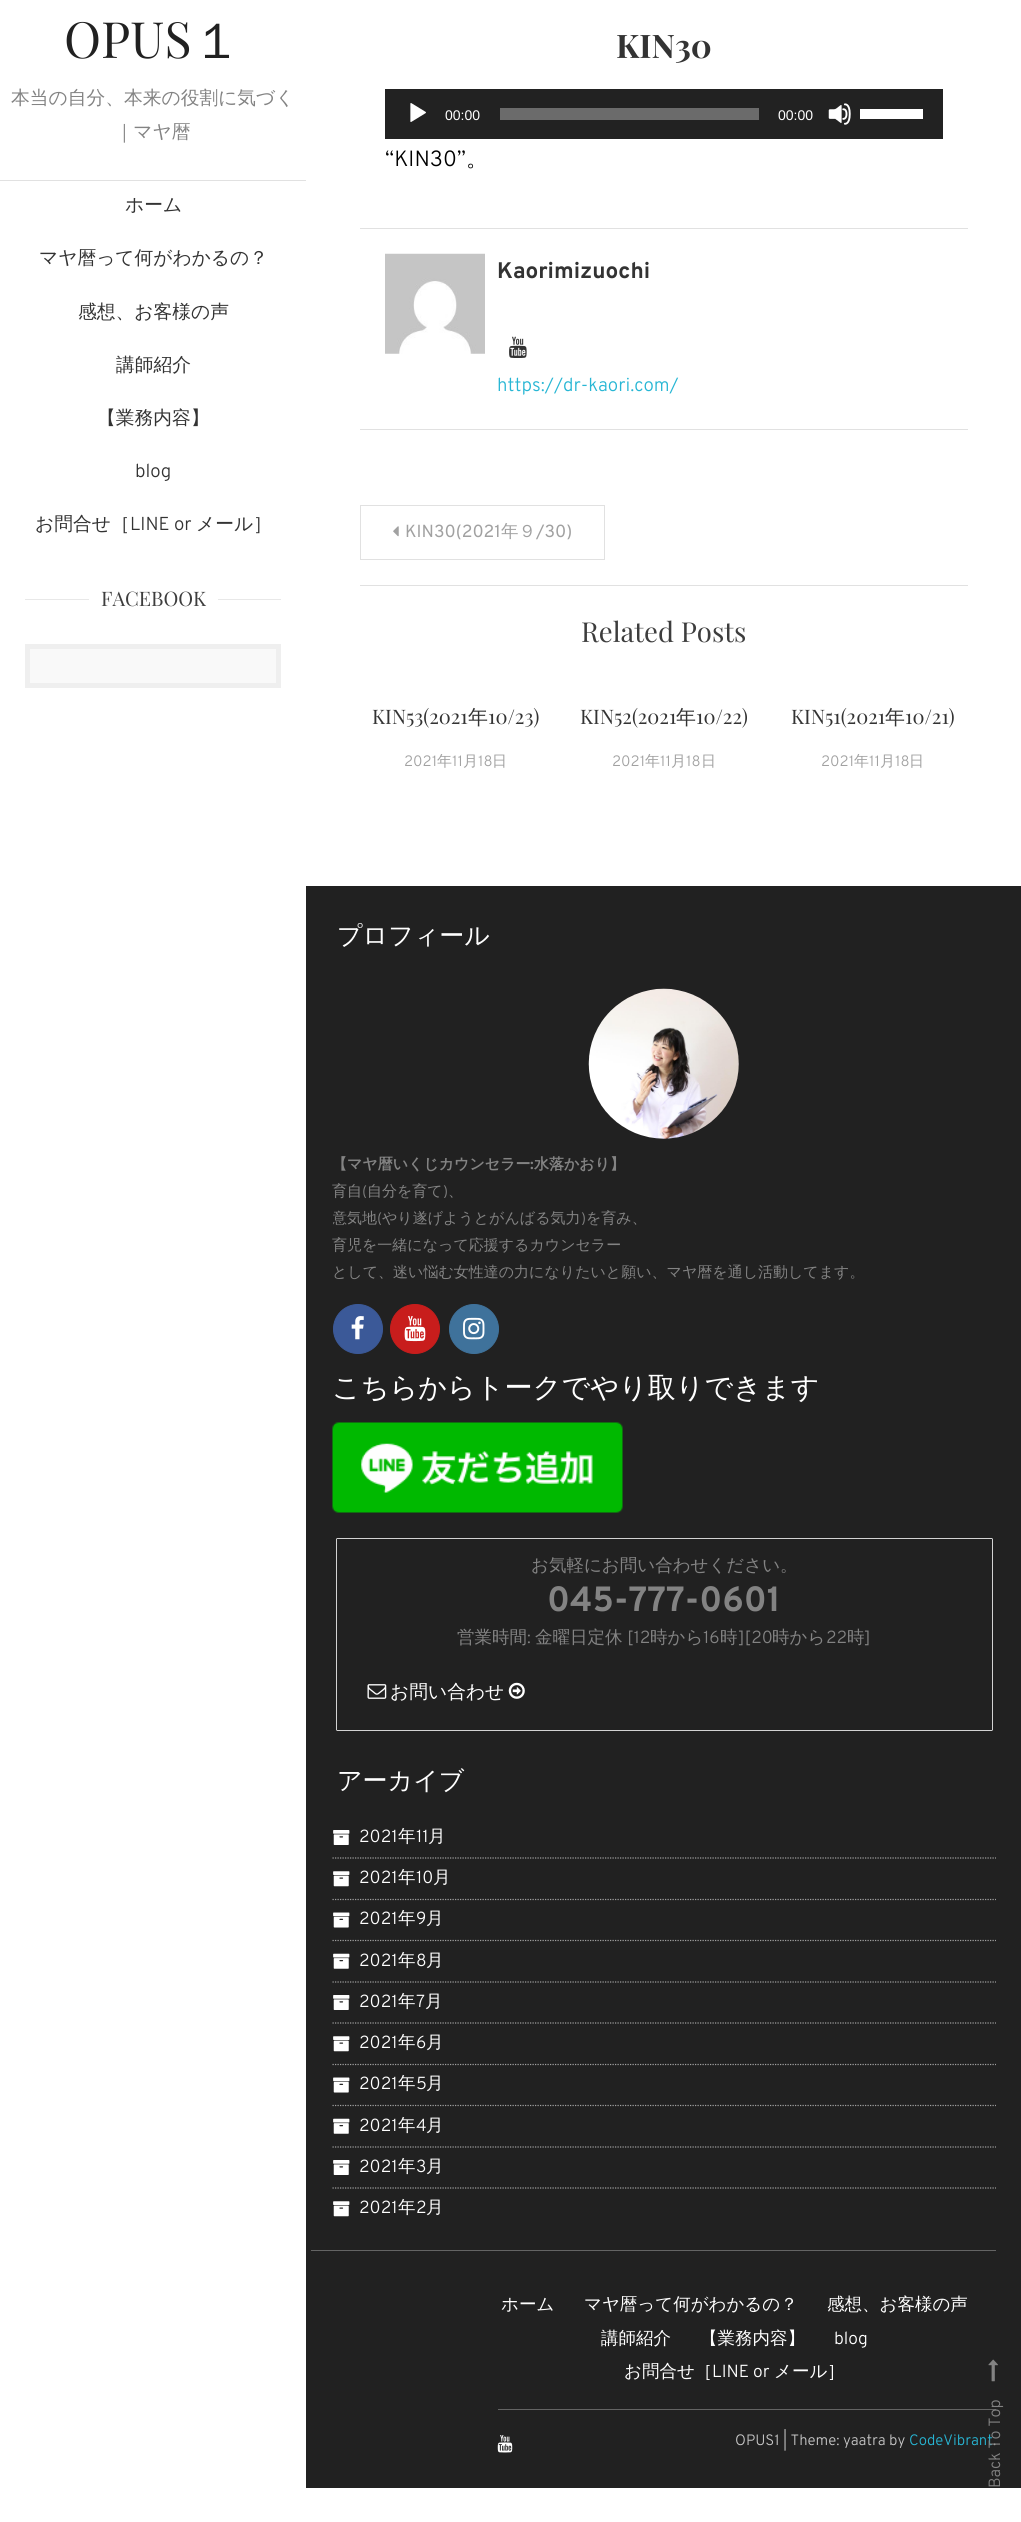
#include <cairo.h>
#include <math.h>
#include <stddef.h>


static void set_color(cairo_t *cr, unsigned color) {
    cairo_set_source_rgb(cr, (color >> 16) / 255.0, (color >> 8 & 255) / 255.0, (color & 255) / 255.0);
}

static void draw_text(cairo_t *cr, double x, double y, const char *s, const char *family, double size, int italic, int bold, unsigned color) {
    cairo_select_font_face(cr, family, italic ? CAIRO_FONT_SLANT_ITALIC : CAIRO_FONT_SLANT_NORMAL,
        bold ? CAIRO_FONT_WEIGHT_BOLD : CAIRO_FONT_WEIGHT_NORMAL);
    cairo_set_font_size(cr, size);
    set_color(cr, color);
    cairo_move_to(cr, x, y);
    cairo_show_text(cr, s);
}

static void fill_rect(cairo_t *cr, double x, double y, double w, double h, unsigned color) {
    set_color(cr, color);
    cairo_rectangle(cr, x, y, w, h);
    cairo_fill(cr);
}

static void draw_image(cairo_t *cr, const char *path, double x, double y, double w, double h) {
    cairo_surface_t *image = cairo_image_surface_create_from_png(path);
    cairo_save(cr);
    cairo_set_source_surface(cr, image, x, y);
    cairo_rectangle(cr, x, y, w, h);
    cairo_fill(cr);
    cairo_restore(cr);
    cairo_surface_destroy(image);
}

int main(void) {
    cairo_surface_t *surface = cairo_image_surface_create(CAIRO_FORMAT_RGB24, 1021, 2522);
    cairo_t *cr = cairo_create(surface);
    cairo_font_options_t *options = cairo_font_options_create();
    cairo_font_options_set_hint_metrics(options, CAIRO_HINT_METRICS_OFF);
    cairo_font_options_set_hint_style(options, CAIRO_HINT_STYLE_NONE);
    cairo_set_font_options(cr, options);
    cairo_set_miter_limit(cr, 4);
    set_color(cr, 0xFFFFFF);
    cairo_paint(cr);
    draw_text(cr, 64, 58, "OPUS", "Playfair Display", 50, 0, 0, 0x212121);
    draw_text(cr, 192, 58, "１", "WenQuanYi Zen Hei Medium", 50, 0, 0, 0x212121);
    draw_text(cr, 11, 104, "本当の自分、本来の役割に気づく", "WenQuanYi Zen Hei Medium", 18.75, 0, 0, 0x838383);
    draw_text(cr, 115, 138, "｜マヤ暦", "WenQuanYi Zen Hei Medium", 18.75, 0, 0, 0x838383);
    fill_rect(cr, 0, 180, 306, 1, 0xE1E1E1);
    draw_text(cr, 125, 211, "ホーム", "WenQuanYi Zen Hei Medium", 18.75, 0, 0, 0x333333);
    draw_text(cr, 39, 264, "マヤ暦って何がわかるの？", "WenQuanYi Zen Hei Medium", 18.75, 0, 0, 0x333333);
    draw_text(cr, 78, 318, "感想、お客様の声", "WenQuanYi Zen Hei Medium", 18.75, 0, 0, 0x333333);
    draw_text(cr, 116, 371, "講師紹介", "WenQuanYi Zen Hei Medium", 18.75, 0, 0, 0x333333);
    draw_text(cr, 97, 424, "【業務内容】", "WenQuanYi Zen Hei Medium", 18.75, 0, 0, 0x333333);
    draw_text(cr, 135, 477, "blog", "Overpass Light", 18.75, 0, 0, 0x333333);
    draw_text(cr, 35, 530, "お問合せ［", "WenQuanYi Zen Hei Medium", 18.75, 0, 0, 0x333333);
    draw_text(cr, 130, 530, "LINE or", "Overpass Light", 18.75, 0, 0, 0x333333);
    draw_text(cr, 196, 530, "メール］", "WenQuanYi Zen Hei Medium", 18.75, 0, 0, 0x333333);
    fill_rect(cr, 25, 599, 64, 1, 0xE8E8E8);
    draw_text(cr, 101, 606, "FACEBOOK", "Playfair Display", 20, 0, 0, 0x3D3D3D);
    fill_rect(cr, 218, 599, 63, 1, 0xE8E8E8);
    set_color(cr, 0xF9F9F9);
    cairo_rectangle(cr, 27.5, 646.5, 251, 39);
    cairo_fill_preserve(cr);
    set_color(cr, 0xEFEFEF);
    cairo_set_line_width(cr, 5);
    cairo_stroke(cr);
    draw_text(cr, 616, 58, "KIN30", "Playfair Display", 32.5, 0, 1, 0x333333);
    fill_rect(cr, 385, 89, 558, 50, 0x222222);
    draw_image(cr, "assets/img1.png", 410, 103, 16, 19);
    draw_text(cr, 445, 120, "00:00", "Liberation Sans", 14, 0, 0, 0xFFFFFF);
    fill_rect(cr, 500, 108, 259, 12, 0x6B6B6B);
    draw_text(cr, 778, 120, "00:00", "Liberation Sans", 14, 0, 0, 0xFFFFFF);
    draw_image(cr, "assets/img2.png", 828, 103, 23, 22);
    fill_rect(cr, 860, 109, 63, 10, 0xFFFFFF);
    draw_text(cr, 385, 166, "“KIN30”", "Overpass Light", 22, 0, 0, 0x000000);
    draw_text(cr, 466, 166, "。", "WenQuanYi Zen Hei Medium", 22, 0, 0, 0x000000);
    fill_rect(cr, 360, 228, 608, 1, 0xE1E1E1);
    fill_rect(cr, 360, 429, 608, 1, 0xE1E1E1);
    draw_image(cr, "assets/img3.png", 385, 253, 100, 101);
    draw_text(cr, 497, 278, "Kaorimizuochi", "Overpass", 22.5, 0, 1, 0x333333);
    draw_image(cr, "assets/img4.png", 509, 336, 18, 22);
    draw_text(cr, 497, 391, "https://dr-kaori.com/", "Overpass Light", 18.75, 0, 0, 0x27B6D4);
    cairo_rectangle(cr, 360.5, 505.5, 244, 54);
    set_color(cr, 0xE1E1E1);
    cairo_set_line_width(cr, 1);
    cairo_stroke(cr);
    draw_image(cr, "assets/img5.png", 393, 526, 6, 11);
    draw_text(cr, 405, 537, "KIN30(2021", "Overpass", 17.5, 0, 0, 0xA1A1A1);
    draw_text(cr, 501, 537, "年９", "WenQuanYi Zen Hei Medium", 17.5, 0, 0, 0xA1A1A1);
    draw_text(cr, 536, 537, "/30)", "Overpass", 17.5, 0, 0, 0xA1A1A1);
    fill_rect(cr, 360, 585, 608, 1, 0xE1E1E1);
    draw_text(cr, 581, 642, "Related Posts", "Playfair Display", 27.5, 0, 0, 0x3D3D3D);
    draw_text(cr, 372, 724, "KIN53(2021", "Playfair Display", 20, 0, 0, 0x333333);
    draw_text(cr, 468, 724, "年", "WenQuanYi Zen Hei Medium", 20, 0, 0, 0x333333);
    draw_text(cr, 488, 724, "10/23)", "Playfair Display", 20, 0, 0, 0x333333);
    draw_text(cr, 404, 766, "2021", "Overpass Light", 15, 0, 0, 0xA1A1A1);
    draw_text(cr, 437, 766, "年", "WenQuanYi Zen Hei Medium", 15, 0, 0, 0xA1A1A1);
    draw_text(cr, 452, 766, "11", "Overpass Light", 15, 0, 0, 0xA1A1A1);
    draw_text(cr, 463, 766, "月", "WenQuanYi Zen Hei Medium", 15, 0, 0, 0xA1A1A1);
    draw_text(cr, 478, 766, "18", "Overpass Light", 15, 0, 0, 0xA1A1A1);
    draw_text(cr, 492, 766, "日", "WenQuanYi Zen Hei Medium", 15, 0, 0, 0xA1A1A1);
    draw_text(cr, 580, 724, "KIN52(2021", "Playfair Display", 20, 0, 0, 0x333333);
    draw_text(cr, 676, 724, "年", "WenQuanYi Zen Hei Medium", 20, 0, 0, 0x333333);
    draw_text(cr, 696, 724, "10/22)", "Playfair Display", 20, 0, 0, 0x333333);
    draw_text(cr, 612, 766, "2021", "Overpass Light", 15, 0, 0, 0xA1A1A1);
    draw_text(cr, 645, 766, "年", "WenQuanYi Zen Hei Medium", 15, 0, 0, 0xA1A1A1);
    draw_text(cr, 660, 766, "11", "Overpass Light", 15, 0, 0, 0xA1A1A1);
    draw_text(cr, 671, 766, "月", "WenQuanYi Zen Hei Medium", 15, 0, 0, 0xA1A1A1);
    draw_text(cr, 686, 766, "18", "Overpass Light", 15, 0, 0, 0xA1A1A1);
    draw_text(cr, 701, 766, "日", "WenQuanYi Zen Hei Medium", 15, 0, 0, 0xA1A1A1);
    draw_text(cr, 791, 724, "KIN51(2021", "Playfair Display", 20, 0, 0, 0x333333);
    draw_text(cr, 885, 724, "年", "WenQuanYi Zen Hei Medium", 20, 0, 0, 0x333333);
    draw_text(cr, 905, 724, "10/21)", "Playfair Display", 20, 0, 0, 0x333333);
    draw_text(cr, 821, 766, "2021", "Overpass Light", 15, 0, 0, 0xA1A1A1);
    draw_text(cr, 854, 766, "年", "WenQuanYi Zen Hei Medium", 15, 0, 0, 0xA1A1A1);
    draw_text(cr, 869, 766, "11", "Overpass Light", 15, 0, 0, 0xA1A1A1);
    draw_text(cr, 880, 766, "月", "WenQuanYi Zen Hei Medium", 15, 0, 0, 0xA1A1A1);
    draw_text(cr, 895, 766, "18", "Overpass Light", 15, 0, 0, 0xA1A1A1);
    draw_text(cr, 909, 766, "日", "WenQuanYi Zen Hei Medium", 15, 0, 0, 0xA1A1A1);
    fill_rect(cr, 306, 886, 715, 1602, 0x212121);
    fill_rect(cr, 311, 2250, 685, 1, 0x646464);
    draw_text(cr, 337, 944, "プロフィール", "WenQuanYi Zen Hei Medium", 25, 0, 0, 0xFFFFFF);
    draw_image(cr, "assets/img6.png", 588, 988, 151, 151);
    draw_text(cr, 332, 1169, "【マヤ暦いくじカウンセラー", "WenQuanYi Zen Hei", 15, 0, 1, 0x838383);
    draw_text(cr, 530, 1169, ":", "Overpass", 15, 0, 1, 0x838383);
    draw_text(cr, 534, 1169, "水落かおり】", "WenQuanYi Zen Hei", 15, 0, 1, 0x838383);
    draw_text(cr, 332, 1196, "育自", "WenQuanYi Zen Hei Medium", 15, 0, 0, 0x838383);
    draw_text(cr, 362, 1196, "(", "Overpass Light", 15, 0, 0, 0x838383);
    draw_text(cr, 367, 1196, "自分を育て", "WenQuanYi Zen Hei Medium", 15, 0, 0, 0x838383);
    draw_text(cr, 443, 1196, ")", "Overpass Light", 15, 0, 0, 0x838383);
    draw_text(cr, 448, 1196, "、", "WenQuanYi Zen Hei Medium", 15, 0, 0, 0x838383);
    cairo_save(cr);
    cairo_rectangle(cr, 333, 974, 663, 380);
    cairo_clip(cr);
    draw_text(cr, 332, 1223, "意気地", "WenQuanYi Zen Hei Medium", 15, 0, 0, 0x838383);
    cairo_restore(cr);
    draw_text(cr, 377, 1223, "(", "Overpass Light", 15, 0, 0, 0x838383);
    draw_text(cr, 382, 1223, "やり遂げようとがんばる気力", "WenQuanYi Zen Hei Medium", 15, 0, 0, 0x838383);
    draw_text(cr, 581, 1223, ")", "Overpass Light", 15, 0, 0, 0x838383);
    draw_text(cr, 586, 1223, "を育み、", "WenQuanYi Zen Hei Medium", 15, 0, 0, 0x838383);
    draw_text(cr, 332, 1250, "育児を一緒になって応援するカウンセラー", "WenQuanYi Zen Hei Medium", 15, 0, 0, 0x838383);
    draw_text(cr, 332, 1277, "として、迷い悩む女性達の力になりたいと願い、マヤ暦を通し活動してます。", "WenQuanYi Zen Hei Medium", 15, 0, 0, 0x838383);
    set_color(cr, 0x3B5998);
    cairo_new_path(cr);
    cairo_arc(cr, 358, 1329, 24.5, 0, 2 * M_PI);
    cairo_fill_preserve(cr);
    cairo_stroke(cr);
    draw_image(cr, "assets/img7.png", 351, 1316, 13, 24);
    set_color(cr, 0xC81D1C);
    cairo_arc(cr, 415, 1329, 24.5, 0, 2 * M_PI);
    cairo_fill_preserve(cr);
    cairo_stroke(cr);
    draw_image(cr, "assets/img8.png", 404, 1316, 22, 26);
    set_color(cr, 0x3F729B);
    cairo_arc(cr, 474, 1329, 24.5, 0, 2 * M_PI);
    cairo_fill_preserve(cr);
    cairo_stroke(cr);
    draw_image(cr, "assets/img9.png", 463, 1317, 22, 23);
    draw_text(cr, 332, 1397, "こちらからトークでやり取りできます", "WenQuanYi Zen Hei Medium", 28.1, 0, 0, 0xFFFFFF);
    draw_image(cr, "assets/img10.png", 332, 1422, 291, 91);
    set_color(cr, 0xD3D3D3);
    cairo_set_fill_rule(cr, CAIRO_FILL_RULE_EVEN_ODD);
    cairo_new_path(cr);
    cairo_move_to(cr, 337, 1538);
    cairo_line_to(cr, 336, 1539);
    cairo_line_to(cr, 336, 1730);
    cairo_line_to(cr, 337, 1731);
    cairo_line_to(cr, 992, 1731);
    cairo_line_to(cr, 993, 1730);
    cairo_line_to(cr, 993, 1539);
    cairo_line_to(cr, 992, 1538);
    cairo_close_path(cr);
    cairo_move_to(cr, 337, 1539);
    cairo_line_to(cr, 337, 1730);
    cairo_line_to(cr, 992, 1730);
    cairo_line_to(cr, 992, 1539);
    cairo_close_path(cr);
    cairo_fill(cr);
    draw_text(cr, 531, 1571, "お気軽にお問い合わせください。", "WenQuanYi Zen Hei Medium", 17.5, 0, 0, 0x838383);
    draw_text(cr, 547, 1611, "045-777-0601", "Overpass", 35, 0, 1, 0x838383);
    draw_text(cr, 457, 1643, "営業時間", "WenQuanYi Zen Hei Medium", 17.5, 0, 0, 0x838383);
    draw_text(cr, 527, 1643, ":", "Overpass Light", 17.5, 0, 0, 0x838383);
    draw_text(cr, 535, 1643, "金曜日定休", "WenQuanYi Zen Hei Medium", 17.5, 0, 0, 0x838383);
    draw_text(cr, 627, 1643, "[12", "Overpass Light", 17.5, 0, 0, 0x838383);
    draw_text(cr, 650, 1643, "時から", "WenQuanYi Zen Hei Medium", 17.5, 0, 0, 0x838383);
    draw_text(cr, 703, 1643, "16", "Overpass Light", 17.5, 0, 0, 0x838383);
    draw_text(cr, 720, 1643, "時", "WenQuanYi Zen Hei Medium", 17.5, 0, 0, 0x838383);
    draw_text(cr, 738, 1643, "][20", "Overpass Light", 17.5, 0, 0, 0x838383);
    draw_text(cr, 772, 1643, "時から", "WenQuanYi Zen Hei Medium", 17.5, 0, 0, 0x838383);
    draw_text(cr, 826, 1643, "22", "Overpass Light", 17.5, 0, 0, 0x838383);
    draw_text(cr, 847, 1643, "時", "WenQuanYi Zen Hei Medium", 17.5, 0, 0, 0x838383);
    draw_text(cr, 864, 1643, "]", "Overpass Light", 17.5, 0, 0, 0x838383);
    draw_image(cr, "assets/img11.png", 367, 1684, 20, 15);
    draw_text(cr, 390, 1698, "お問い合わせ", "WenQuanYi Zen Hei Medium", 18.75, 0, 0, 0xFFFFFF);
    draw_image(cr, "assets/img12.png", 508, 1682, 17, 17);
    draw_text(cr, 337, 1789, "アーカイブ", "WenQuanYi Zen Hei Medium", 25, 0, 0, 0xFFFFFF);
    cairo_new_path(cr);
    cairo_move_to(cr, 332.5, 1858);
    cairo_line_to(cr, 996, 1858);
    set_color(cr, 0xA1A1A1);
    cairo_set_line_width(cr, 1.2);
    cairo_set_dash(cr, (double[]){1.25, 1.25}, 2, 0);
    cairo_stroke(cr);
    draw_image(cr, "assets/img13.png", 333, 1830, 17, 15);
    draw_text(cr, 359, 1842, "2021", "Overpass Light", 17.5, 0, 0, 0xFFFFFF);
    draw_text(cr, 398, 1842, "年", "WenQuanYi Zen Hei Medium", 17.5, 0, 0, 0xFFFFFF);
    draw_text(cr, 416, 1842, "11", "Overpass Light", 17.5, 0, 0, 0xFFFFFF);
    draw_text(cr, 428, 1842, "月", "WenQuanYi Zen Hei Medium", 17.5, 0, 0, 0xFFFFFF);
    cairo_new_path(cr);
    cairo_move_to(cr, 332.5, 1899.5);
    cairo_line_to(cr, 996, 1899.5);
    set_color(cr, 0xA1A1A1);
    cairo_stroke(cr);
    draw_image(cr, "assets/img14.png", 333, 1871, 17, 16);
    draw_text(cr, 359, 1883, "2021", "Overpass Light", 17.5, 0, 0, 0xFFFFFF);
    draw_text(cr, 398, 1883, "年", "WenQuanYi Zen Hei Medium", 17.5, 0, 0, 0xFFFFFF);
    draw_text(cr, 416, 1883, "10", "Overpass Light", 17.5, 0, 0, 0xFFFFFF);
    draw_text(cr, 433, 1883, "月", "WenQuanYi Zen Hei Medium", 17.5, 0, 0, 0xFFFFFF);
    cairo_new_path(cr);
    cairo_move_to(cr, 332.5, 1940.5);
    cairo_line_to(cr, 996, 1940.5);
    set_color(cr, 0xA1A1A1);
    cairo_stroke(cr);
    draw_image(cr, "assets/img15.png", 333, 1912, 17, 16);
    draw_text(cr, 359, 1924, "2021", "Overpass Light", 17.5, 0, 0, 0xFFFFFF);
    draw_text(cr, 398, 1924, "年", "WenQuanYi Zen Hei Medium", 17.5, 0, 0, 0xFFFFFF);
    draw_text(cr, 416, 1924, "9", "Overpass Light", 17.5, 0, 0, 0xFFFFFF);
    draw_text(cr, 426, 1924, "月", "WenQuanYi Zen Hei Medium", 17.5, 0, 0, 0xFFFFFF);
    cairo_new_path(cr);
    cairo_move_to(cr, 332.5, 1982);
    cairo_line_to(cr, 996, 1982);
    set_color(cr, 0xA1A1A1);
    cairo_stroke(cr);
    draw_image(cr, "assets/img16.png", 333, 1953, 17, 16);
    draw_text(cr, 359, 1966, "2021", "Overpass Light", 17.5, 0, 0, 0xFFFFFF);
    draw_text(cr, 398, 1966, "年", "WenQuanYi Zen Hei Medium", 17.5, 0, 0, 0xFFFFFF);
    draw_text(cr, 416, 1966, "8", "Overpass Light", 17.5, 0, 0, 0xFFFFFF);
    draw_text(cr, 426, 1966, "月", "WenQuanYi Zen Hei Medium", 17.5, 0, 0, 0xFFFFFF);
    cairo_new_path(cr);
    cairo_move_to(cr, 332.5, 2023);
    cairo_line_to(cr, 996, 2023);
    set_color(cr, 0xA1A1A1);
    cairo_stroke(cr);
    draw_image(cr, "assets/img13.png", 333, 1995, 17, 15);
    draw_text(cr, 359, 2007, "2021", "Overpass Light", 17.5, 0, 0, 0xFFFFFF);
    draw_text(cr, 398, 2007, "年", "WenQuanYi Zen Hei Medium", 17.5, 0, 0, 0xFFFFFF);
    draw_text(cr, 416, 2007, "7", "Overpass Light", 17.5, 0, 0, 0xFFFFFF);
    draw_text(cr, 425, 2007, "月", "WenQuanYi Zen Hei Medium", 17.5, 0, 0, 0xFFFFFF);
    cairo_new_path(cr);
    cairo_move_to(cr, 332.5, 2064.5);
    cairo_line_to(cr, 996, 2064.5);
    set_color(cr, 0xA1A1A1);
    cairo_stroke(cr);
    draw_image(cr, "assets/img14.png", 333, 2036, 17, 16);
    draw_text(cr, 359, 2048, "2021", "Overpass Light", 17.5, 0, 0, 0xFFFFFF);
    draw_text(cr, 398, 2048, "年", "WenQuanYi Zen Hei Medium", 17.5, 0, 0, 0xFFFFFF);
    draw_text(cr, 416, 2048, "6", "Overpass Light", 17.5, 0, 0, 0xFFFFFF);
    draw_text(cr, 426, 2048, "月", "WenQuanYi Zen Hei Medium", 17.5, 0, 0, 0xFFFFFF);
    cairo_new_path(cr);
    cairo_move_to(cr, 332.5, 2105.5);
    cairo_line_to(cr, 996, 2105.5);
    set_color(cr, 0xA1A1A1);
    cairo_stroke(cr);
    draw_image(cr, "assets/img15.png", 333, 2077, 17, 16);
    draw_text(cr, 359, 2089, "2021", "Overpass Light", 17.5, 0, 0, 0xFFFFFF);
    draw_text(cr, 398, 2089, "年", "WenQuanYi Zen Hei Medium", 17.5, 0, 0, 0xFFFFFF);
    draw_text(cr, 416, 2089, "5", "Overpass Light", 17.5, 0, 0, 0xFFFFFF);
    draw_text(cr, 426, 2089, "月", "WenQuanYi Zen Hei Medium", 17.5, 0, 0, 0xFFFFFF);
    cairo_new_path(cr);
    cairo_move_to(cr, 332.5, 2147);
    cairo_line_to(cr, 996, 2147);
    set_color(cr, 0xA1A1A1);
    cairo_stroke(cr);
    draw_image(cr, "assets/img16.png", 333, 2118, 17, 16);
    draw_text(cr, 359, 2131, "2021", "Overpass Light", 17.5, 0, 0, 0xFFFFFF);
    draw_text(cr, 398, 2131, "年", "WenQuanYi Zen Hei Medium", 17.5, 0, 0, 0xFFFFFF);
    draw_text(cr, 416, 2131, "4", "Overpass Light", 17.5, 0, 0, 0xFFFFFF);
    draw_text(cr, 426, 2131, "月", "WenQuanYi Zen Hei Medium", 17.5, 0, 0, 0xFFFFFF);
    cairo_new_path(cr);
    cairo_move_to(cr, 332.5, 2188);
    cairo_line_to(cr, 996, 2188);
    set_color(cr, 0xA1A1A1);
    cairo_stroke(cr);
    draw_image(cr, "assets/img13.png", 333, 2160, 17, 15);
    draw_text(cr, 359, 2172, "2021", "Overpass Light", 17.5, 0, 0, 0xFFFFFF);
    draw_text(cr, 398, 2172, "年", "WenQuanYi Zen Hei Medium", 17.5, 0, 0, 0xFFFFFF);
    draw_text(cr, 416, 2172, "3", "Overpass Light", 17.5, 0, 0, 0xFFFFFF);
    draw_text(cr, 426, 2172, "月", "WenQuanYi Zen Hei Medium", 17.5, 0, 0, 0xFFFFFF);
    draw_image(cr, "assets/img14.png", 333, 2201, 17, 16);
    draw_text(cr, 359, 2213, "2021", "Overpass Light", 17.5, 0, 0, 0xFFFFFF);
    draw_text(cr, 398, 2213, "年", "WenQuanYi Zen Hei Medium", 17.5, 0, 0, 0xFFFFFF);
    draw_text(cr, 416, 2213, "2", "Overpass Light", 17.5, 0, 0, 0xFFFFFF);
    draw_text(cr, 426, 2213, "月", "WenQuanYi Zen Hei Medium", 17.5, 0, 0, 0xFFFFFF);
    fill_rect(cr, 498, 2409, 498, 1, 0x646464);
    draw_text(cr, 501, 2310, "ホーム", "WenQuanYi Zen Hei Medium", 17.5, 0, 0, 0xFFFFFF);
    draw_text(cr, 584, 2310, "マヤ暦って何がわかるの？", "WenQuanYi Zen Hei Medium", 17.5, 0, 0, 0xFFFFFF);
    draw_text(cr, 827, 2310, "感想、お客様の声", "WenQuanYi Zen Hei Medium", 17.5, 0, 0, 0xFFFFFF);
    draw_text(cr, 601, 2344, "講師紹介", "WenQuanYi Zen Hei Medium", 17.5, 0, 0, 0xFFFFFF);
    draw_text(cr, 700, 2344, "【業務内容】", "WenQuanYi Zen Hei Medium", 17.5, 0, 0, 0xFFFFFF);
    draw_text(cr, 834, 2344, "blog", "Overpass Light", 17.5, 0, 0, 0xFFFFFF);
    draw_text(cr, 624, 2377, "お問合せ［", "WenQuanYi Zen Hei Medium", 17.5, 0, 0, 0xFFFFFF);
    draw_text(cr, 712, 2377, "LINE or", "Overpass Light", 17.5, 0, 0, 0xFFFFFF);
    draw_text(cr, 774, 2377, "メール］", "WenQuanYi Zen Hei Medium", 17.5, 0, 0, 0xFFFFFF);
    draw_image(cr, "assets/img17.png", 497, 2435, 16, 18);
    draw_text(cr, 735, 2445, "OPUS1 | Theme: yaatra by", "Overpass Light", 15, 0, 0, 0xC6C6C6);
    draw_text(cr, 909, 2445, "CodeVibrant", "Overpass Light", 15, 0, 0, 0x27B6D4);
    draw_text(cr, 993, 2445, ".", "Overpass Light", 15, 0, 0, 0xC6C6C6);
    draw_image(cr, "assets/img18.png", 988, 2359, 10, 23);
    cairo_save(cr);
    cairo_translate(cr, 1000, 2488);
    cairo_rotate(cr, -90 * M_PI / 180);
    draw_text(cr, 0, 0, "Back To Top", "Overpass Light", 16.25, 0, 0, 0x838383);
    cairo_restore(cr);
    cairo_surface_write_to_png(surface, "output.png");
    cairo_font_options_destroy(options);
    cairo_destroy(cr);
    cairo_surface_destroy(surface);
    return 0;
}
